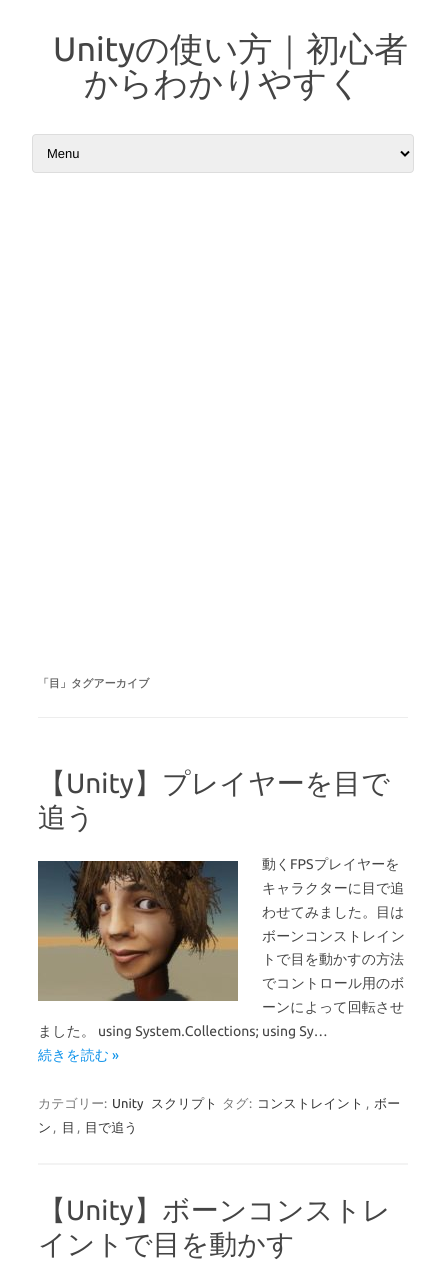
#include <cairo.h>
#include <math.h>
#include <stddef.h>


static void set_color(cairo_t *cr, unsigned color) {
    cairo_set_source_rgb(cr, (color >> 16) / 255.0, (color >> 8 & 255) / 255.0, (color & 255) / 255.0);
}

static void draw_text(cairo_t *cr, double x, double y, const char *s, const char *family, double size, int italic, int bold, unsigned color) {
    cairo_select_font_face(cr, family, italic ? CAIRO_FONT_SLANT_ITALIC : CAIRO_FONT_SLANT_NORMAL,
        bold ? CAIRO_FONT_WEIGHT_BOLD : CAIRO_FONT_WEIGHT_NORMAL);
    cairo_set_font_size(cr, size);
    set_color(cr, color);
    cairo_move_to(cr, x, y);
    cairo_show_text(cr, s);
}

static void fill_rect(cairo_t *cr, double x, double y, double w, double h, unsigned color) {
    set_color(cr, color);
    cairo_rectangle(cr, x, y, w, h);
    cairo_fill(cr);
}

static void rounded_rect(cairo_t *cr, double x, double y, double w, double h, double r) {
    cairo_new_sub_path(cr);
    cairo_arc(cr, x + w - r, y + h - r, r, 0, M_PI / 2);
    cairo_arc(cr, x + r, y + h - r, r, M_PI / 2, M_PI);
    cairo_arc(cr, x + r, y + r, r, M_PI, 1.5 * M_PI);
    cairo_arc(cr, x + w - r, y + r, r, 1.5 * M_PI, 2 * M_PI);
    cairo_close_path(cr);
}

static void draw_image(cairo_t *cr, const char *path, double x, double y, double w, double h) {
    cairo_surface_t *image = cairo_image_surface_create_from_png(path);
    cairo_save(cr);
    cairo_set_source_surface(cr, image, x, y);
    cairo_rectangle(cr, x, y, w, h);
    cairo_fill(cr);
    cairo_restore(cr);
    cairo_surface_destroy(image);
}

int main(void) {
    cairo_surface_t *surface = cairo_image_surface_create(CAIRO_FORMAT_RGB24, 446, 1286);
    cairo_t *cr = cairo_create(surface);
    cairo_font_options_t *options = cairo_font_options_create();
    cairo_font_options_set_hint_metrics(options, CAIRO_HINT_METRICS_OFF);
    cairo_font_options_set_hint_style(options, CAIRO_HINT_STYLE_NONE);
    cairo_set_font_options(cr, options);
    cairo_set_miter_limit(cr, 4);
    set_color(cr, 0xFFFFFF);
    cairo_paint(cr);
    draw_text(cr, 53, 61, "Unity", "Ubuntu", 34, 0, 0, 0x444444);
    draw_text(cr, 135, 61, "の使い方｜初心者", "WenQuanYi Zen Hei Medium", 34, 0, 0, 0x444444);
    draw_text(cr, 84, 95, "からわかりやすく", "WenQuanYi Zen Hei Medium", 34, 0, 0, 0x444444);
    set_color(cr, 0xEFEFEF);
    rounded_rect(cr, 32.5, 134.5, 381, 38, 3.5);
    cairo_fill_preserve(cr);
    set_color(cr, 0xDDDDDD);
    cairo_set_line_width(cr, 1);
    cairo_stroke(cr);
    cairo_new_path(cr);
    cairo_move_to(cr, 401, 151.5);
    cairo_line_to(cr, 405, 155.5);
    cairo_line_to(cr, 409, 151.5);
    set_color(cr, 0x000000);
    cairo_set_line_width(cr, 2);
    cairo_stroke(cr);
    draw_text(cr, 47, 158, "Menu", "Liberation Sans", 13, 0, 0, 0x000000);
    fill_rect(cr, 38, 717, 370, 1, 0xEDEDED);
    draw_text(cr, 38, 687, "「目」タグアーカイブ", "WenQuanYi Zen Hei", 11, 0, 1, 0x636363);
    fill_rect(cr, 38, 1163, 370, 2, 0xF3F3F3);
    draw_text(cr, 38, 793, "【", "WenQuanYi Zen Hei Medium", 28, 0, 0, 0x444444);
    draw_text(cr, 66, 793, "Unity", "Ubuntu", 28, 0, 0, 0x444444);
    draw_text(cr, 134, 793, "】プレイヤーを目で", "WenQuanYi Zen Hei Medium", 28, 0, 0, 0x444444);
    draw_text(cr, 38, 827, "追う", "WenQuanYi Zen Hei Medium", 28, 0, 0, 0x444444);
    draw_text(cr, 262, 869, "動く", "WenQuanYi Zen Hei Medium", 14, 0, 0, 0x444444);
    draw_text(cr, 290, 869, "FPS", "Ubuntu", 14, 0, 0, 0x444444);
    draw_text(cr, 314, 869, "プレイヤーを", "WenQuanYi Zen Hei Medium", 14, 0, 0, 0x444444);
    draw_text(cr, 262, 893, "キャラクターに目で追", "WenQuanYi Zen Hei Medium", 14, 0, 0, 0x444444);
    draw_text(cr, 262, 917, "わせてみました。目は", "WenQuanYi Zen Hei Medium", 14, 0, 0, 0x444444);
    draw_text(cr, 262, 941, "ボーンコンストレイン", "WenQuanYi Zen Hei Medium", 14, 0, 0, 0x444444);
    draw_text(cr, 262, 964, "トで目を動かすの方法", "WenQuanYi Zen Hei Medium", 14, 0, 0, 0x444444);
    draw_text(cr, 262, 988, "でコントロール用のボ", "WenQuanYi Zen Hei Medium", 14, 0, 0, 0x444444);
    draw_text(cr, 262, 1012, "ーンによって回転させ", "WenQuanYi Zen Hei Medium", 14, 0, 0, 0x444444);
    draw_text(cr, 38, 1036, "ました。", "WenQuanYi Zen Hei Medium", 14, 0, 0, 0x444444);
    draw_text(cr, 98, 1036, "using System.Collections; using Sy…", "Ubuntu", 14, 0, 0, 0x444444);
    draw_text(cr, 38, 1060, "続きを読む", "WenQuanYi Zen Hei Medium", 14, 0, 0, 0x0B91EA);
    draw_text(cr, 112, 1060, "»", "Ubuntu", 14, 0, 0, 0x0B91EA);
    draw_image(cr, "assets/img1.png", 38, 861, 200, 140);
    draw_text(cr, 38, 1108, "カテゴリー", "WenQuanYi Zen Hei Medium", 13, 0, 0, 0x757575);
    draw_text(cr, 104, 1108, ":", "Ubuntu", 13, 0, 0, 0x757575);
    draw_text(cr, 112, 1108, "Unity", "Ubuntu", 13, 0, 0, 0x333333);
    draw_text(cr, 151, 1108, "スクリプト", "WenQuanYi Zen Hei Medium", 13, 0, 0, 0x333333);
    draw_text(cr, 222, 1108, "タグ", "WenQuanYi Zen Hei Medium", 13, 0, 0, 0x757575);
    draw_text(cr, 249, 1108, ":", "Ubuntu", 13, 0, 0, 0x757575);
    draw_text(cr, 257, 1108, "コンストレイント", "WenQuanYi Zen Hei Medium", 13, 0, 0, 0x333333);
    draw_text(cr, 366, 1108, ",", "Ubuntu", 13, 0, 0, 0x757575);
    draw_text(cr, 374, 1108, "ボー", "WenQuanYi Zen Hei Medium", 13, 0, 0, 0x333333);
    draw_text(cr, 38, 1132, "ン", "WenQuanYi Zen Hei Medium", 13, 0, 0, 0x333333);
    draw_text(cr, 53, 1132, ",", "Ubuntu", 13, 0, 0, 0x757575);
    draw_text(cr, 62, 1132, "目", "WenQuanYi Zen Hei Medium", 13, 0, 0, 0x333333);
    draw_text(cr, 77, 1132, ",", "Ubuntu", 13, 0, 0, 0x757575);
    draw_text(cr, 85, 1132, "目で追う", "WenQuanYi Zen Hei Medium", 13, 0, 0, 0x333333);
    draw_text(cr, 38, 1220, "【", "WenQuanYi Zen Hei Medium", 28, 0, 0, 0x444444);
    draw_text(cr, 66, 1220, "Unity", "Ubuntu", 28, 0, 0, 0x444444);
    draw_text(cr, 134, 1220, "】ボーンコンストレ", "WenQuanYi Zen Hei Medium", 28, 0, 0, 0x444444);
    draw_text(cr, 38, 1254, "イントで目を動かす", "WenQuanYi Zen Hei Medium", 28, 0, 0, 0x444444);
    cairo_surface_write_to_png(surface, "output.png");
    cairo_font_options_destroy(options);
    cairo_destroy(cr);
    cairo_surface_destroy(surface);
    return 0;
}
